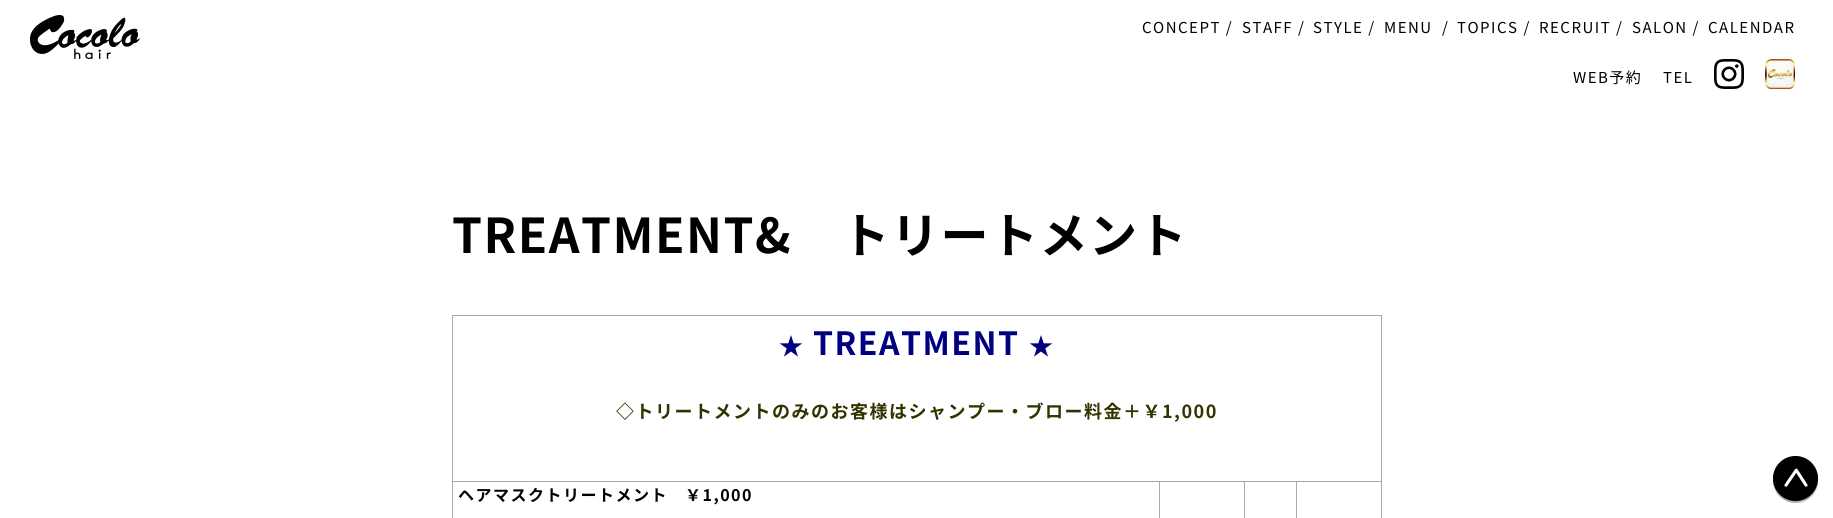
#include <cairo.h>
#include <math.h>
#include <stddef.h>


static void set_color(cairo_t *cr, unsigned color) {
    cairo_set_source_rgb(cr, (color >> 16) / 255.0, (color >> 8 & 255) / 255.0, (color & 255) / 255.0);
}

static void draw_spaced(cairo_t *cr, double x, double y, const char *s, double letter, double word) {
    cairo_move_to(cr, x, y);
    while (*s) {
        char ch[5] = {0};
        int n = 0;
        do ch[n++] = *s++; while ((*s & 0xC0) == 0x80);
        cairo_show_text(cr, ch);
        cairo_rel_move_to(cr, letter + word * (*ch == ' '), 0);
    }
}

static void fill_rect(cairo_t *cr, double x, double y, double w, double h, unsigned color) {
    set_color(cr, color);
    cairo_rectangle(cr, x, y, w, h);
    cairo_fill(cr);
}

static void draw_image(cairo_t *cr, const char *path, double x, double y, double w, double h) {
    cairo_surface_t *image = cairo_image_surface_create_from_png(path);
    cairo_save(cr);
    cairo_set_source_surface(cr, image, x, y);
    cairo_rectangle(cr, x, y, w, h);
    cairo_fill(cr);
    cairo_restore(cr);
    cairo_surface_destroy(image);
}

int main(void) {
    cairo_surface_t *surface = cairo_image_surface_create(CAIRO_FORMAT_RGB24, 1833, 518);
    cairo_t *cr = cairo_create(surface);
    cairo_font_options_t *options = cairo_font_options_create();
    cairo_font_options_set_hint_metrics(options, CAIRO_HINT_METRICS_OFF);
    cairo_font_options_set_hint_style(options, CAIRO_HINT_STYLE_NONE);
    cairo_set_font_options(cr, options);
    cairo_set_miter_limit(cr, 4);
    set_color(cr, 0xFFFFFF);
    cairo_paint(cr);
    draw_image(cr, "assets/img1.png", 30, 15, 110, 44);
    cairo_select_font_face(cr, "Noto Sans JP", CAIRO_FONT_SLANT_NORMAL, CAIRO_FONT_WEIGHT_NORMAL);
    cairo_set_font_size(cr, 15);
    set_color(cr, 0x000000);
    draw_spaced(cr, 1142, 33, "CONCEPT /", 1.5, 0);
    draw_spaced(cr, 1242, 33, "STAFF /", 1.5, 0);
    draw_spaced(cr, 1313, 33, "STYLE /", 1.5, 0);
    draw_spaced(cr, 1384, 33, "MENU", 1.5, 0);
    draw_spaced(cr, 1442, 33, "/", 1.5, 0);
    draw_spaced(cr, 1457, 33, "TOPICS /", 1.5, 0);
    draw_spaced(cr, 1539, 33, "RECRUIT /", 1.5, 0);
    draw_spaced(cr, 1632, 33, "SALON /", 1.5, 0);
    draw_spaced(cr, 1708, 33, "CALENDAR", 1.5, 0);
    draw_spaced(cr, 1573, 83, "WEB予約", 1.5, 0);
    draw_spaced(cr, 1663, 83, "TEL", 1.5, 0);
    draw_image(cr, "assets/img2.png", 1714, 59, 30, 30);
    draw_image(cr, "assets/img3.png", 1765, 59, 30, 30);
    cairo_select_font_face(cr, "Noto Sans JP", CAIRO_FONT_SLANT_NORMAL, CAIRO_FONT_WEIGHT_BOLD);
    cairo_set_font_size(cr, 48);
    draw_spaced(cr, 452, 253, "TREATMENT&　トリートメント", 1.5, 0);
    fill_rect(cr, 452, 315, 930, 1, 0xA9A9A9);
    fill_rect(cr, 1296, 481, 86, 1, 0xA9A9A9);
    fill_rect(cr, 1381, 481, 1, 37, 0xA9A9A9);
    fill_rect(cr, 1381, 315, 1, 167, 0xA9A9A9);
    fill_rect(cr, 1296, 481, 1, 37, 0xA9A9A9);
    fill_rect(cr, 1244, 481, 53, 1, 0xA9A9A9);
    fill_rect(cr, 1244, 481, 1, 37, 0xA9A9A9);
    fill_rect(cr, 1159, 481, 86, 1, 0xA9A9A9);
    fill_rect(cr, 1159, 481, 1, 37, 0xA9A9A9);
    fill_rect(cr, 452, 481, 708, 1, 0xA9A9A9);
    fill_rect(cr, 452, 481, 1, 37, 0xA9A9A9);
    fill_rect(cr, 452, 315, 1, 167, 0xA9A9A9);
    cairo_set_font_size(cr, 24);
    set_color(cr, 0x000080);
    draw_spaced(cr, 779, 355, "★", 1.5, 0);
    cairo_set_font_size(cr, 32);
    draw_spaced(cr, 813, 355, "TREATMENT", 1.5, 0);
    cairo_set_font_size(cr, 24);
    draw_spaced(cr, 1029, 355, "★", 1.5, 0);
    cairo_set_font_size(cr, 18);
    set_color(cr, 0x333300);
    draw_spaced(cr, 616, 418, "◇トリートメントのみのお客様はシャンプー・ブロー料金＋￥1,000", 1.5, 0);
    cairo_set_font_size(cr, 16);
    set_color(cr, 0x000000);
    draw_spaced(cr, 458, 501, "ヘアマスクトリートメント", 1.5, 0);
    draw_spaced(cr, 685, 501, "￥1,000", 1.5, 0);
    draw_image(cr, "assets/img4.png", 1773, 456, 45, 47);
    cairo_surface_write_to_png(surface, "output.png");
    cairo_font_options_destroy(options);
    cairo_destroy(cr);
    cairo_surface_destroy(surface);
    return 0;
}
